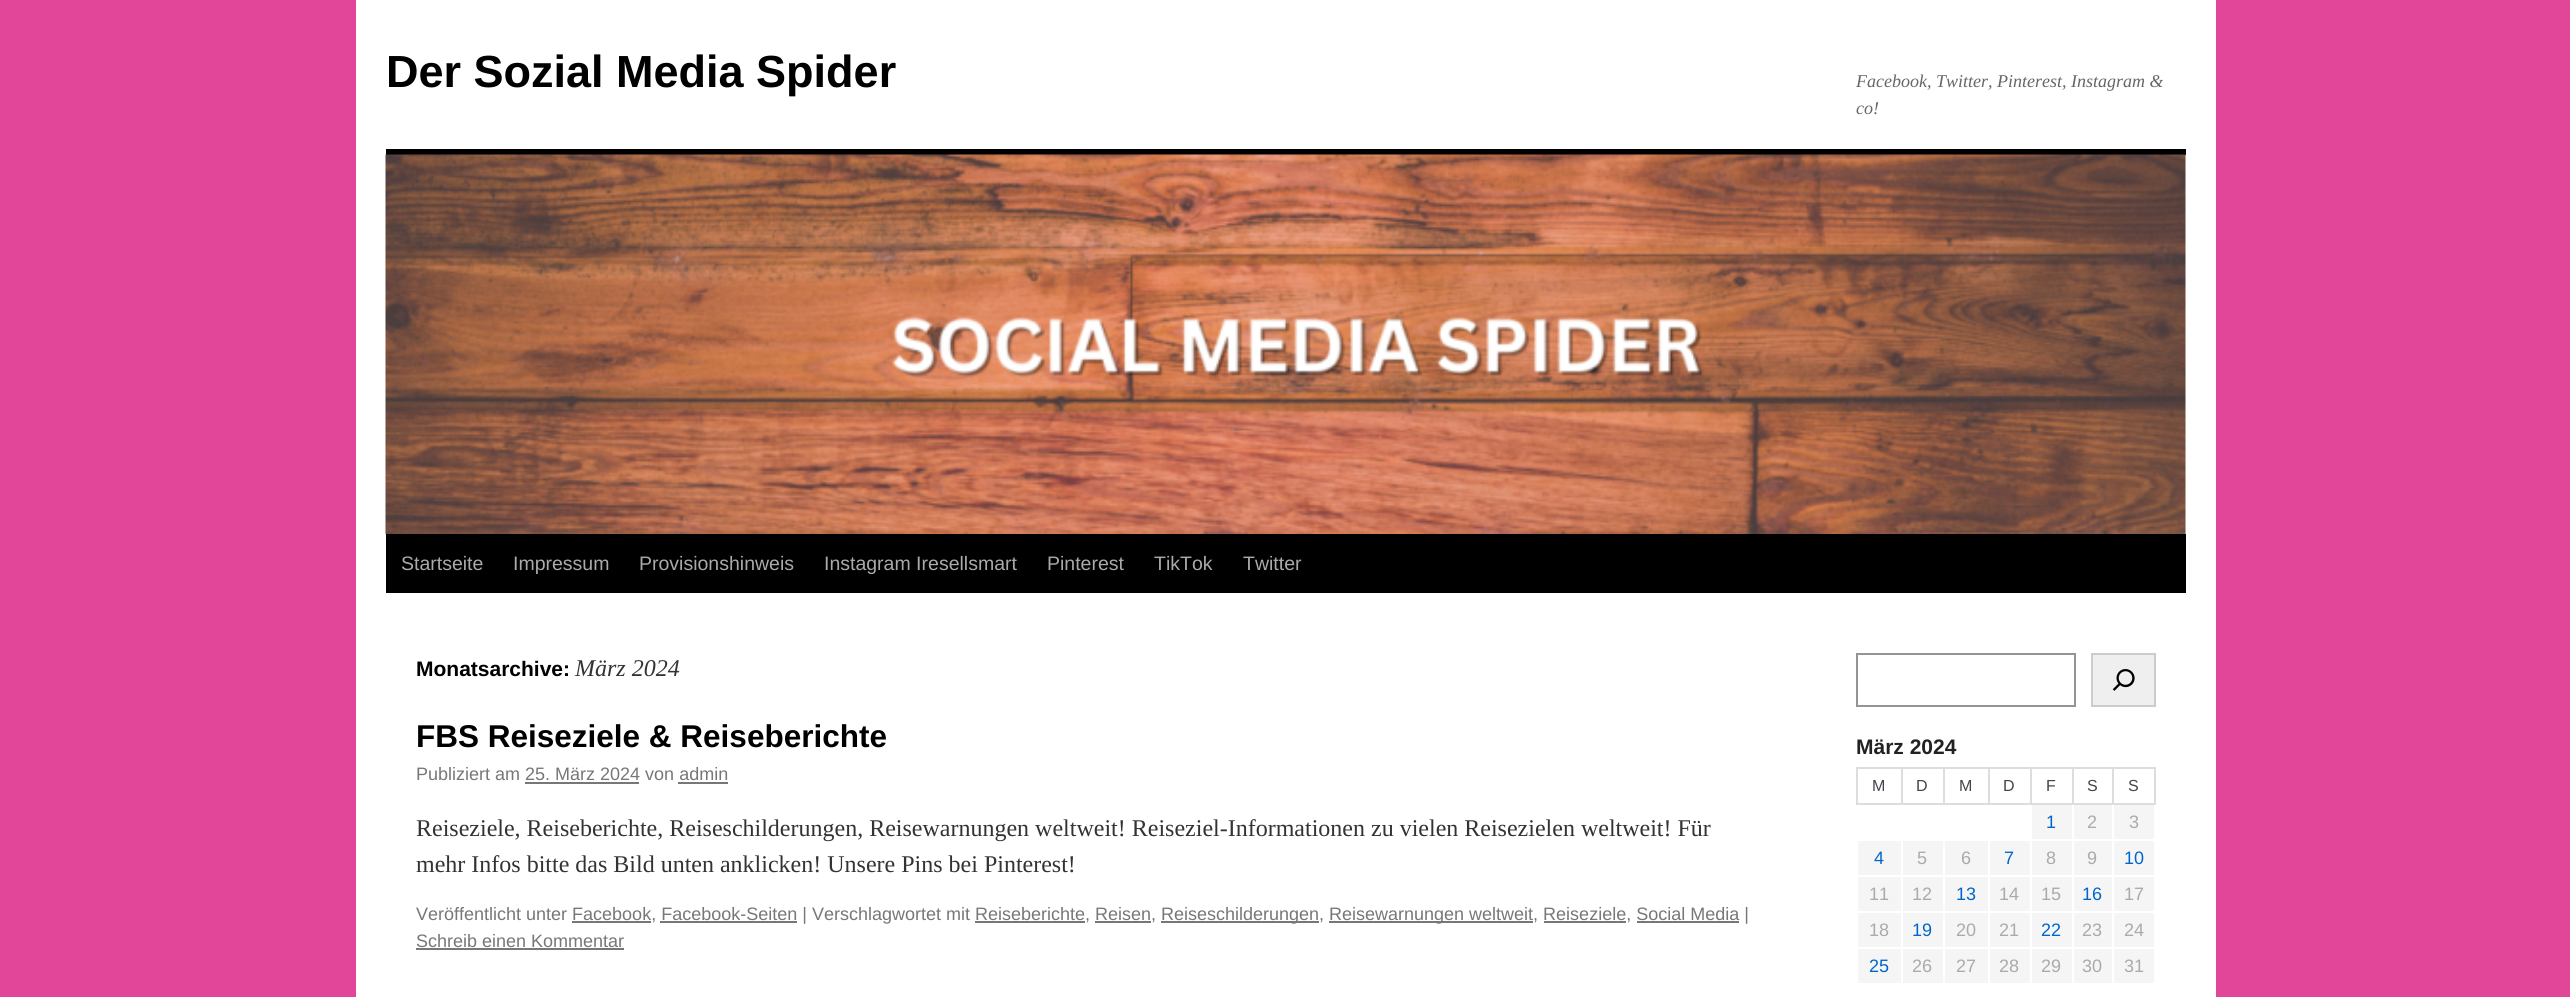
#include <cairo.h>
#include <math.h>
#include <stddef.h>


static void set_color(cairo_t *cr, unsigned color) {
    cairo_set_source_rgb(cr, (color >> 16) / 255.0, (color >> 8 & 255) / 255.0, (color & 255) / 255.0);
}

static void draw_text(cairo_t *cr, double x, double y, const char *s, const char *family, double size, int italic, int bold, unsigned color) {
    cairo_select_font_face(cr, family, italic ? CAIRO_FONT_SLANT_ITALIC : CAIRO_FONT_SLANT_NORMAL,
        bold ? CAIRO_FONT_WEIGHT_BOLD : CAIRO_FONT_WEIGHT_NORMAL);
    cairo_set_font_size(cr, size);
    set_color(cr, color);
    cairo_move_to(cr, x, y);
    cairo_show_text(cr, s);
}

static void fill_rect(cairo_t *cr, double x, double y, double w, double h, unsigned color) {
    set_color(cr, color);
    cairo_rectangle(cr, x, y, w, h);
    cairo_fill(cr);
}

static void draw_image(cairo_t *cr, const char *path, double x, double y, double w, double h) {
    cairo_surface_t *image = cairo_image_surface_create_from_png(path);
    cairo_save(cr);
    cairo_set_source_surface(cr, image, x, y);
    cairo_rectangle(cr, x, y, w, h);
    cairo_fill(cr);
    cairo_restore(cr);
    cairo_surface_destroy(image);
}

int main(void) {
    cairo_surface_t *surface = cairo_image_surface_create(CAIRO_FORMAT_RGB24, 2570, 997);
    cairo_t *cr = cairo_create(surface);
    cairo_font_options_t *options = cairo_font_options_create();
    cairo_font_options_set_hint_metrics(options, CAIRO_HINT_METRICS_OFF);
    cairo_font_options_set_hint_style(options, CAIRO_HINT_STYLE_NONE);
    cairo_set_font_options(cr, options);
    cairo_set_miter_limit(cr, 4);
    set_color(cr, 0xE24699);
    cairo_paint(cr);
    fill_rect(cr, 356, 0, 1860, 997, 0xFFFFFF);
    draw_text(cr, 386, 87, "Der Sozial Media Spider", "Liberation Sans", 45, 0, 1, 0x000000);
    draw_text(cr, 1856, 87, "Facebook, Twitter, Pinterest, Instagram &", "Liberation Serif", 18, 1, 0, 0x666666);
    draw_text(cr, 1856, 114, "co!", "Liberation Serif", 18, 1, 0, 0x666666);
    fill_rect(cr, 386, 149, 1800, 6, 0x000000);
    fill_rect(cr, 386, 534, 1800, 59, 0x000000);
    draw_image(cr, "assets/img1.png", 385, 154, 1801, 380);
    draw_text(cr, 401, 570, "Startseite", "Liberation Sans", 19.5, 0, 0, 0xAAAAAA);
    draw_text(cr, 513, 570, "Impressum", "Liberation Sans", 19.5, 0, 0, 0xAAAAAA);
    draw_text(cr, 639, 570, "Provisionshinweis", "Liberation Sans", 19.5, 0, 0, 0xAAAAAA);
    draw_text(cr, 824, 570, "Instagram Iresellsmart", "Liberation Sans", 19.5, 0, 0, 0xAAAAAA);
    draw_text(cr, 1047, 570, "Pinterest", "Liberation Sans", 19.5, 0, 0, 0xAAAAAA);
    draw_text(cr, 1154, 570, "TikTok", "Liberation Sans", 19.5, 0, 0, 0xAAAAAA);
    draw_text(cr, 1243, 570, "Twitter", "Liberation Sans", 19.5, 0, 0, 0xAAAAAA);
    draw_text(cr, 416, 676, "Monatsarchive:", "Liberation Sans", 21, 0, 1, 0x000000);
    draw_text(cr, 575, 676, "März 2024", "Liberation Serif", 24, 1, 0, 0x333333);
    draw_text(cr, 416, 747, "FBS Reiseziele & Reiseberichte", "Liberation Sans", 31.5, 0, 1, 0x000000);
    draw_text(cr, 416, 780, "Publiziert am 25. März 2024 von admin", "Liberation Sans", 18, 0, 0, 0x777777);
    fill_rect(cr, 525, 782, 114, 2, 0x777777);
    fill_rect(cr, 678, 782, 50, 2, 0x777777);
    draw_text(cr, 416, 836, "Reiseziele, Reiseberichte, Reiseschilderungen, Reisewarnungen weltweit! Reiseziel-Informationen zu vielen Reisezielen weltweit! Für", "Liberation Serif", 24, 0, 0, 0x333333);
    draw_text(cr, 416, 872, "mehr Infos bitte das Bild unten anklicken! Unsere Pins bei Pinterest!", "Liberation Serif", 24, 0, 0, 0x333333);
    draw_text(cr, 416, 920, "Veröffentlicht unter Facebook, Facebook-Seiten | Verschlagwortet mit Reiseberichte, Reisen,", "Liberation Sans", 18, 0, 0, 0x777777);
    fill_rect(cr, 572, 921, 79, 2, 0x777777);
    fill_rect(cr, 660, 921, 137, 2, 0x777777);
    fill_rect(cr, 1161, 921, 158, 2, 0x777777);
    draw_text(cr, 1161, 920, "Reiseschilderungen,", "Liberation Sans", 18, 0, 0, 0x777777);
    fill_rect(cr, 975, 921, 110, 2, 0x777777);
    fill_rect(cr, 1095, 921, 56, 2, 0x777777);
    fill_rect(cr, 1329, 921, 204, 2, 0x777777);
    draw_text(cr, 1329, 920, "Reisewarnungen weltweit, Reiseziele, Social Media |", "Liberation Sans", 18, 0, 0, 0x777777);
    fill_rect(cr, 1544, 921, 82, 2, 0x777777);
    fill_rect(cr, 1637, 921, 102, 2, 0x777777);
    draw_text(cr, 416, 947, "Schreib einen Kommentar", "Liberation Sans", 18, 0, 0, 0x777777);
    fill_rect(cr, 416, 948, 208, 2, 0x777777);
    cairo_rectangle(cr, 1857, 654, 218, 52);
    set_color(cr, 0x949494);
    cairo_stroke(cr);
    set_color(cr, 0xEFEFEF);
    cairo_rectangle(cr, 2092, 654, 63, 52);
    cairo_fill_preserve(cr);
    set_color(cr, 0xCCCCCC);
    cairo_stroke(cr);
    draw_image(cr, "assets/img2.png", 2112, 669, 23, 22);
    draw_text(cr, 1856, 754, "März 2024", "Liberation Sans", 21, 0, 1, 0x222222);
    fill_rect(cr, 2112, 767, 44, 2, 0xDDDDDD);
    fill_rect(cr, 2154, 767, 2, 37, 0xDDDDDD);
    fill_rect(cr, 2112, 803, 44, 2, 0xDDDDDD);
    fill_rect(cr, 2112, 767, 2, 37, 0xDDDDDD);
    fill_rect(cr, 2072, 767, 42, 2, 0xDDDDDD);
    fill_rect(cr, 2072, 803, 42, 2, 0xDDDDDD);
    fill_rect(cr, 2072, 767, 2, 37, 0xDDDDDD);
    fill_rect(cr, 2030, 767, 43, 2, 0xDDDDDD);
    fill_rect(cr, 2030, 803, 43, 2, 0xDDDDDD);
    fill_rect(cr, 2030, 767, 2, 37, 0xDDDDDD);
    fill_rect(cr, 1988, 767, 43, 2, 0xDDDDDD);
    fill_rect(cr, 1988, 803, 43, 2, 0xDDDDDD);
    fill_rect(cr, 1988, 767, 2, 37, 0xDDDDDD);
    fill_rect(cr, 1943, 767, 46, 2, 0xDDDDDD);
    fill_rect(cr, 1943, 803, 46, 2, 0xDDDDDD);
    fill_rect(cr, 1943, 767, 2, 37, 0xDDDDDD);
    fill_rect(cr, 1901, 767, 43, 2, 0xDDDDDD);
    fill_rect(cr, 1901, 803, 43, 2, 0xDDDDDD);
    fill_rect(cr, 1901, 767, 2, 37, 0xDDDDDD);
    fill_rect(cr, 1856, 767, 46, 2, 0xDDDDDD);
    fill_rect(cr, 1856, 803, 46, 2, 0xDDDDDD);
    fill_rect(cr, 1856, 767, 2, 37, 0xDDDDDD);
    draw_text(cr, 1872, 791, "M", "Liberation Sans", 16, 0, 0, 0x40464D);
    draw_text(cr, 1916, 791, "D", "Liberation Sans", 16, 0, 0, 0x40464D);
    draw_text(cr, 1959, 791, "M", "Liberation Sans", 16, 0, 0, 0x40464D);
    draw_text(cr, 2003, 791, "D", "Liberation Sans", 16, 0, 0, 0x40464D);
    draw_text(cr, 2046, 791, "F", "Liberation Sans", 16, 0, 0, 0x40464D);
    draw_text(cr, 2087, 791, "S", "Liberation Sans", 16, 0, 0, 0x40464D);
    draw_text(cr, 2128, 791, "S", "Liberation Sans", 16, 0, 0, 0x40464D);
    fill_rect(cr, 2032, 805, 40, 34, 0xF5F5F5);
    draw_text(cr, 2046, 828, "1", "Liberation Sans", 18, 0, 0, 0x0066CC);
    fill_rect(cr, 2074, 805, 38, 34, 0xF5F5F5);
    draw_text(cr, 2087, 828, "2", "Liberation Sans", 18, 0, 0, 0xAAAAAA);
    fill_rect(cr, 2114, 805, 40, 34, 0xF5F5F5);
    draw_text(cr, 2129, 828, "3", "Liberation Sans", 18, 0, 0, 0xAAAAAA);
    fill_rect(cr, 1858, 841, 43, 34, 0xF5F5F5);
    draw_text(cr, 1874, 864, "4", "Liberation Sans", 18, 0, 0, 0x0066CC);
    fill_rect(cr, 1903, 841, 40, 34, 0xF5F5F5);
    draw_text(cr, 1917, 864, "5", "Liberation Sans", 18, 0, 0, 0xAAAAAA);
    fill_rect(cr, 1945, 841, 43, 34, 0xF5F5F5);
    draw_text(cr, 1961, 864, "6", "Liberation Sans", 18, 0, 0, 0xAAAAAA);
    fill_rect(cr, 1990, 841, 40, 34, 0xF5F5F5);
    draw_text(cr, 2004, 864, "7", "Liberation Sans", 18, 0, 0, 0x0066CC);
    fill_rect(cr, 2032, 841, 40, 34, 0xF5F5F5);
    draw_text(cr, 2046, 864, "8", "Liberation Sans", 18, 0, 0, 0xAAAAAA);
    fill_rect(cr, 2074, 841, 38, 34, 0xF5F5F5);
    draw_text(cr, 2087, 864, "9", "Liberation Sans", 18, 0, 0, 0xAAAAAA);
    fill_rect(cr, 2114, 841, 40, 34, 0xF5F5F5);
    draw_text(cr, 2124, 864, "10", "Liberation Sans", 18, 0, 0, 0x0066CC);
    fill_rect(cr, 1858, 877, 43, 34, 0xF5F5F5);
    draw_text(cr, 1869, 900, "11", "Liberation Sans", 18, 0, 0, 0xAAAAAA);
    fill_rect(cr, 1903, 877, 40, 34, 0xF5F5F5);
    draw_text(cr, 1912, 900, "12", "Liberation Sans", 18, 0, 0, 0xAAAAAA);
    fill_rect(cr, 1945, 877, 43, 34, 0xF5F5F5);
    draw_text(cr, 1956, 900, "13", "Liberation Sans", 18, 0, 0, 0x0066CC);
    fill_rect(cr, 1990, 877, 40, 34, 0xF5F5F5);
    draw_text(cr, 1999, 900, "14", "Liberation Sans", 18, 0, 0, 0xAAAAAA);
    fill_rect(cr, 2032, 877, 40, 34, 0xF5F5F5);
    draw_text(cr, 2041, 900, "15", "Liberation Sans", 18, 0, 0, 0xAAAAAA);
    fill_rect(cr, 2074, 877, 38, 34, 0xF5F5F5);
    draw_text(cr, 2082, 900, "16", "Liberation Sans", 18, 0, 0, 0x0066CC);
    fill_rect(cr, 2114, 877, 40, 34, 0xF5F5F5);
    draw_text(cr, 2124, 900, "17", "Liberation Sans", 18, 0, 0, 0xAAAAAA);
    fill_rect(cr, 1858, 913, 43, 34, 0xF5F5F5);
    draw_text(cr, 1869, 936, "18", "Liberation Sans", 18, 0, 0, 0xAAAAAA);
    fill_rect(cr, 1903, 913, 40, 34, 0xF5F5F5);
    draw_text(cr, 1912, 936, "19", "Liberation Sans", 18, 0, 0, 0x0066CC);
    fill_rect(cr, 1945, 913, 43, 34, 0xF5F5F5);
    draw_text(cr, 1956, 936, "20", "Liberation Sans", 18, 0, 0, 0xAAAAAA);
    fill_rect(cr, 1990, 913, 40, 34, 0xF5F5F5);
    draw_text(cr, 1999, 936, "21", "Liberation Sans", 18, 0, 0, 0xAAAAAA);
    fill_rect(cr, 2032, 913, 40, 34, 0xF5F5F5);
    draw_text(cr, 2041, 936, "22", "Liberation Sans", 18, 0, 0, 0x0066CC);
    fill_rect(cr, 2074, 913, 38, 34, 0xF5F5F5);
    draw_text(cr, 2082, 936, "23", "Liberation Sans", 18, 0, 0, 0xAAAAAA);
    fill_rect(cr, 2114, 913, 40, 34, 0xF5F5F5);
    draw_text(cr, 2124, 936, "24", "Liberation Sans", 18, 0, 0, 0xAAAAAA);
    fill_rect(cr, 1858, 949, 43, 34, 0xF5F5F5);
    draw_text(cr, 1869, 972, "25", "Liberation Sans", 18, 0, 0, 0x0066CC);
    fill_rect(cr, 1903, 949, 40, 34, 0xF5F5F5);
    draw_text(cr, 1912, 972, "26", "Liberation Sans", 18, 0, 0, 0xAAAAAA);
    fill_rect(cr, 1945, 949, 43, 34, 0xF5F5F5);
    draw_text(cr, 1956, 972, "27", "Liberation Sans", 18, 0, 0, 0xAAAAAA);
    fill_rect(cr, 1990, 949, 40, 34, 0xF5F5F5);
    draw_text(cr, 1999, 972, "28", "Liberation Sans", 18, 0, 0, 0xAAAAAA);
    fill_rect(cr, 2032, 949, 40, 34, 0xF5F5F5);
    draw_text(cr, 2041, 972, "29", "Liberation Sans", 18, 0, 0, 0xAAAAAA);
    fill_rect(cr, 2074, 949, 38, 34, 0xF5F5F5);
    draw_text(cr, 2082, 972, "30", "Liberation Sans", 18, 0, 0, 0xAAAAAA);
    fill_rect(cr, 2114, 949, 40, 34, 0xF5F5F5);
    draw_text(cr, 2124, 972, "31", "Liberation Sans", 18, 0, 0, 0xAAAAAA);
    cairo_surface_write_to_png(surface, "output.png");
    cairo_font_options_destroy(options);
    cairo_destroy(cr);
    cairo_surface_destroy(surface);
    return 0;
}
